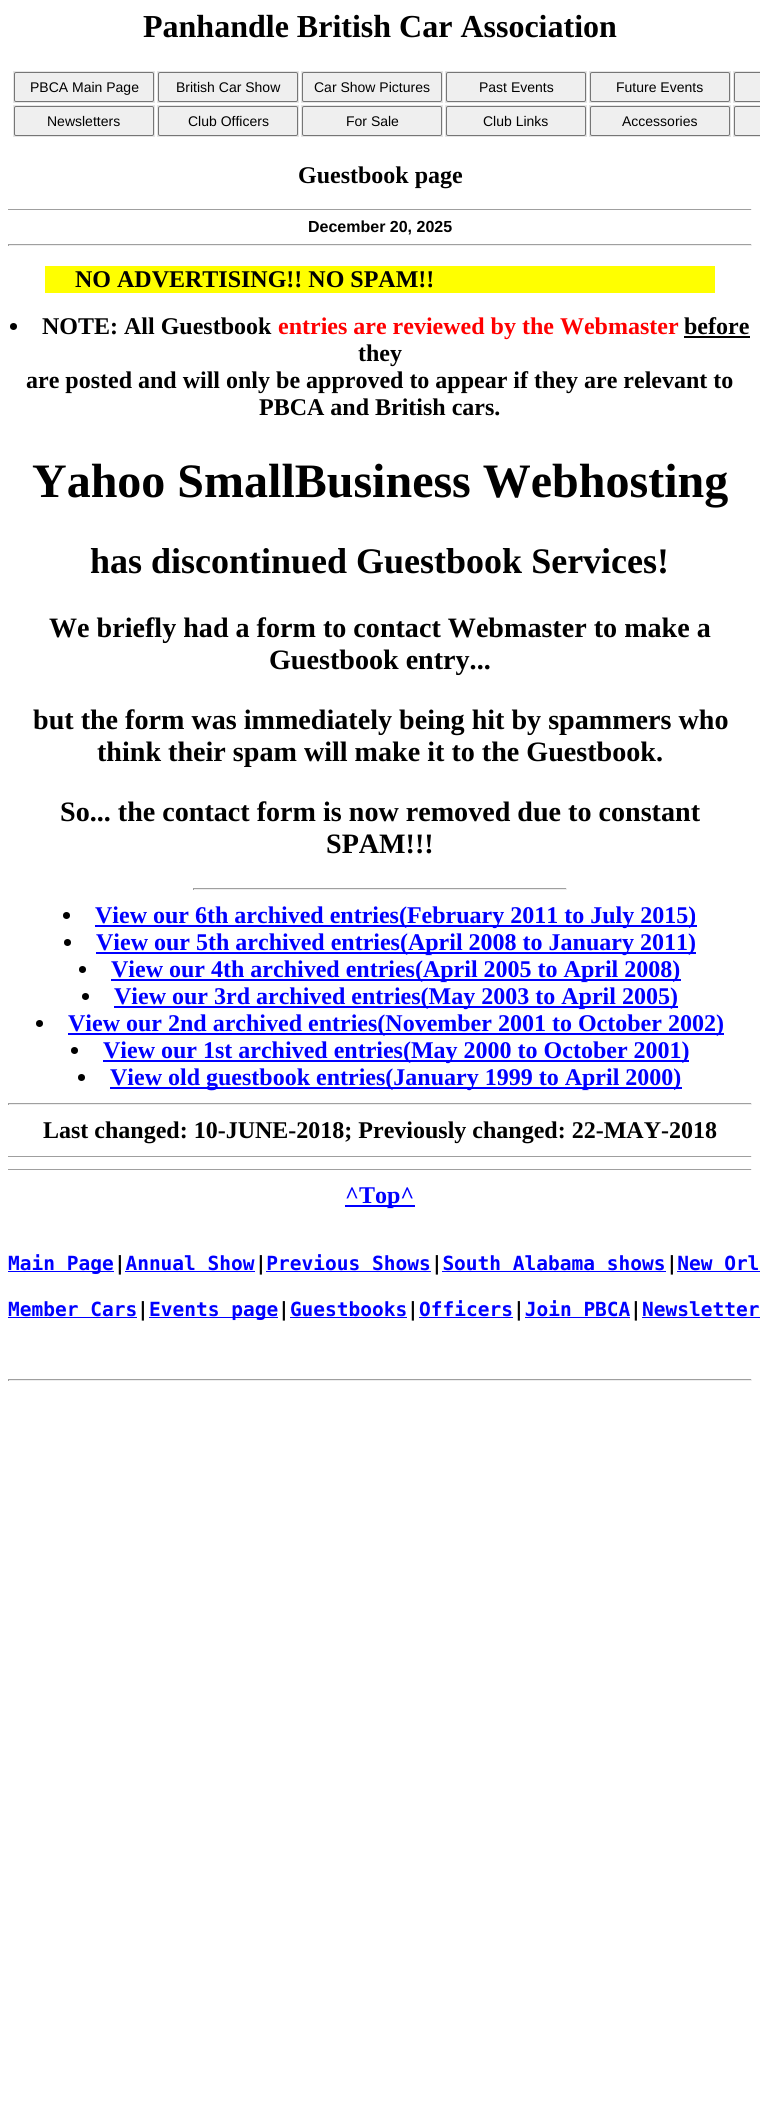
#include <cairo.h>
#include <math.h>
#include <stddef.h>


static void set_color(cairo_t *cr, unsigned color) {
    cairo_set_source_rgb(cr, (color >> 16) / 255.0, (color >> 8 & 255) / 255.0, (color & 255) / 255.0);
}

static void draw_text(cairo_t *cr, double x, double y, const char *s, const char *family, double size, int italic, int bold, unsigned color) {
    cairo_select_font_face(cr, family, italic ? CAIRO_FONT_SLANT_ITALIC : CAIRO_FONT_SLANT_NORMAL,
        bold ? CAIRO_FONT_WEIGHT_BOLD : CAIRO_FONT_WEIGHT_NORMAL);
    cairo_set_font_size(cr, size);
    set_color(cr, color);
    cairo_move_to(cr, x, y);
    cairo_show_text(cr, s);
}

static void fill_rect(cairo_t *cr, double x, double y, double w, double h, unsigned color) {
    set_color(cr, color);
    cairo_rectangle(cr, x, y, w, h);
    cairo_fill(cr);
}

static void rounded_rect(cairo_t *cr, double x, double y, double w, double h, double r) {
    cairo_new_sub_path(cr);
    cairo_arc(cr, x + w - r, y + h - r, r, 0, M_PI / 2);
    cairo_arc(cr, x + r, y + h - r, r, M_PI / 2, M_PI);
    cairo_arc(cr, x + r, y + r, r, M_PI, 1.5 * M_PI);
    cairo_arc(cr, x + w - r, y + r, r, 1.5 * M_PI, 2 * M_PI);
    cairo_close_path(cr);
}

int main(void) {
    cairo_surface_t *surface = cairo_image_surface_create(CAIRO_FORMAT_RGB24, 760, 2125);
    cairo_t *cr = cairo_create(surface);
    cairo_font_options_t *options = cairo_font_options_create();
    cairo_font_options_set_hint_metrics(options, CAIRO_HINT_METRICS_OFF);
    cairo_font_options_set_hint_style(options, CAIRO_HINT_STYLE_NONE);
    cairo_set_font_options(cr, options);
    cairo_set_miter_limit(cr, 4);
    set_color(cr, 0xFFFFFF);
    cairo_paint(cr);
    draw_text(cr, 143, 37, "Panhandle British Car Association", "Liberation Serif", 32, 0, 1, 0x000000);
    fill_rect(cr, 13, 71, 142, 32, 0xE6E6E6);
    set_color(cr, 0xEFEFEF);
    rounded_rect(cr, 14.5, 72.5, 139, 29, 1.5);
    cairo_fill_preserve(cr);
    set_color(cr, 0x767676);
    cairo_set_line_width(cr, 1);
    cairo_stroke(cr);
    draw_text(cr, 30, 92, "PBCA Main Page", "Liberation Sans", 14, 0, 0, 0x000000);
    fill_rect(cr, 157, 71, 142, 32, 0xE6E6E6);
    set_color(cr, 0xEFEFEF);
    rounded_rect(cr, 158.5, 72.5, 139, 29, 1.5);
    cairo_fill_preserve(cr);
    set_color(cr, 0x767676);
    cairo_stroke(cr);
    draw_text(cr, 176, 92, "British Car Show", "Liberation Sans", 14, 0, 0, 0x000000);
    fill_rect(cr, 301, 71, 142, 32, 0xE6E6E6);
    set_color(cr, 0xEFEFEF);
    rounded_rect(cr, 302.5, 72.5, 139, 29, 1.5);
    cairo_fill_preserve(cr);
    set_color(cr, 0x767676);
    cairo_stroke(cr);
    draw_text(cr, 314, 92, "Car Show Pictures", "Liberation Sans", 14, 0, 0, 0x000000);
    fill_rect(cr, 445, 71, 142, 32, 0xE6E6E6);
    set_color(cr, 0xEFEFEF);
    rounded_rect(cr, 446.5, 72.5, 139, 29, 1.5);
    cairo_fill_preserve(cr);
    set_color(cr, 0x767676);
    cairo_stroke(cr);
    draw_text(cr, 479, 92, "Past Events", "Liberation Sans", 14, 0, 0, 0x000000);
    fill_rect(cr, 589, 71, 142, 32, 0xE6E6E6);
    set_color(cr, 0xEFEFEF);
    rounded_rect(cr, 590.5, 72.5, 139, 29, 1.5);
    cairo_fill_preserve(cr);
    set_color(cr, 0x767676);
    cairo_stroke(cr);
    draw_text(cr, 616, 92, "Future Events", "Liberation Sans", 14, 0, 0, 0x000000);
    fill_rect(cr, 733, 71, 27, 32, 0xE6E6E6);
    set_color(cr, 0xEFEFEF);
    rounded_rect(cr, 734.5, 72.5, 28, 29, 1.5);
    cairo_fill_preserve(cr);
    set_color(cr, 0x767676);
    cairo_stroke(cr);
    fill_rect(cr, 13, 105, 142, 32, 0xE6E6E6);
    set_color(cr, 0xEFEFEF);
    rounded_rect(cr, 14.5, 106.5, 139, 29, 1.5);
    cairo_fill_preserve(cr);
    set_color(cr, 0x767676);
    cairo_stroke(cr);
    draw_text(cr, 47, 126, "Newsletters", "Liberation Sans", 14, 0, 0, 0x000000);
    fill_rect(cr, 157, 105, 142, 32, 0xE6E6E6);
    set_color(cr, 0xEFEFEF);
    rounded_rect(cr, 158.5, 106.5, 139, 29, 1.5);
    cairo_fill_preserve(cr);
    set_color(cr, 0x767676);
    cairo_stroke(cr);
    draw_text(cr, 188, 126, "Club Officers", "Liberation Sans", 14, 0, 0, 0x000000);
    fill_rect(cr, 301, 105, 142, 32, 0xE6E6E6);
    set_color(cr, 0xEFEFEF);
    rounded_rect(cr, 302.5, 106.5, 139, 29, 1.5);
    cairo_fill_preserve(cr);
    set_color(cr, 0x767676);
    cairo_stroke(cr);
    draw_text(cr, 346, 126, "For Sale", "Liberation Sans", 14, 0, 0, 0x000000);
    fill_rect(cr, 445, 105, 142, 32, 0xE6E6E6);
    set_color(cr, 0xEFEFEF);
    rounded_rect(cr, 446.5, 106.5, 139, 29, 1.5);
    cairo_fill_preserve(cr);
    set_color(cr, 0x767676);
    cairo_stroke(cr);
    draw_text(cr, 483, 126, "Club Links", "Liberation Sans", 14, 0, 0, 0x000000);
    fill_rect(cr, 589, 105, 142, 32, 0xE6E6E6);
    set_color(cr, 0xEFEFEF);
    rounded_rect(cr, 590.5, 106.5, 139, 29, 1.5);
    cairo_fill_preserve(cr);
    set_color(cr, 0x767676);
    cairo_stroke(cr);
    draw_text(cr, 622, 126, "Accessories", "Liberation Sans", 14, 0, 0, 0x000000);
    fill_rect(cr, 733, 105, 27, 32, 0xE6E6E6);
    set_color(cr, 0xEFEFEF);
    rounded_rect(cr, 734.5, 106.5, 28, 29, 1.5);
    cairo_fill_preserve(cr);
    set_color(cr, 0x767676);
    cairo_stroke(cr);
    draw_text(cr, 298, 183, "Guestbook page", "Liberation Serif", 24, 0, 1, 0x000000);
    fill_rect(cr, 8, 209, 744, 1, 0x9F9F9F);
    fill_rect(cr, 751, 209, 1, 1, 0xEEEEEE);
    draw_text(cr, 308, 232, "December 20, 2025", "Liberation Sans", 16, 0, 1, 0x000000);
    fill_rect(cr, 8, 244, 744, 1, 0x9F9F9F);
    fill_rect(cr, 751, 244, 1, 2, 0xEEEEEE);
    fill_rect(cr, 8, 245, 744, 1, 0xEEEEEE);
    fill_rect(cr, 8, 244, 1, 2, 0x9F9F9F);
    fill_rect(cr, 45, 266, 670, 27, 0xFFFF00);
    draw_text(cr, 75, 287, "NO ADVERTISING!! NO SPAM!!", "Liberation Serif", 24, 0, 1, 0x000000);
    cairo_new_path(cr);
    cairo_arc(cr, 13.5, 326.5, 3.5, 0, 2 * M_PI);
    cairo_fill(cr);
    draw_text(cr, 42, 334, "NOTE: All Guestbook", "Liberation Serif", 24, 0, 1, 0x000000);
    draw_text(cr, 278, 334, "entries are reviewed by the Webmaster", "Liberation Serif", 24, 0, 1, 0xFF0000);
    draw_text(cr, 684, 334, "before", "Liberation Serif", 24, 0, 1, 0x000000);
    fill_rect(cr, 684, 336, 66, 2, 0x000000);
    draw_text(cr, 358, 361, "they", "Liberation Serif", 24, 0, 1, 0x000000);
    draw_text(cr, 26, 388, "are posted and will only be approved to appear if they are relevant to", "Liberation Serif", 24, 0, 1, 0x000000);
    draw_text(cr, 259, 415, "PBCA and British cars.", "Liberation Serif", 24, 0, 1, 0x000000);
    draw_text(cr, 32, 497, "Yahoo SmallBusiness Webhosting", "Liberation Serif", 48, 0, 1, 0x000000);
    draw_text(cr, 90, 573, "has discontinued Guestbook Services!", "Liberation Serif", 36, 0, 1, 0x000000);
    draw_text(cr, 49, 637, "We briefly had a form to contact Webmaster to make a", "Liberation Serif", 28.1, 0, 1, 0x000000);
    draw_text(cr, 269, 669, "Guestbook entry...", "Liberation Serif", 28.1, 0, 1, 0x000000);
    draw_text(cr, 33, 729, "but the form was immediately being hit by spammers who", "Liberation Serif", 28.1, 0, 1, 0x000000);
    draw_text(cr, 97, 761, "think their spam will make it to the Guestbook.", "Liberation Serif", 28.1, 0, 1, 0x000000);
    draw_text(cr, 60, 821, "So... the contact form is now removed due to constant", "Liberation Serif", 28.1, 0, 1, 0x000000);
    draw_text(cr, 326, 853, "SPAM!!!", "Liberation Serif", 28.1, 0, 1, 0x000000);
    fill_rect(cr, 193, 888, 374, 1, 0x9F9F9F);
    fill_rect(cr, 566, 888, 1, 2, 0xEEEEEE);
    fill_rect(cr, 193, 889, 374, 1, 0xEEEEEE);
    fill_rect(cr, 193, 888, 1, 2, 0x9F9F9F);
    set_color(cr, 0x000000);
    cairo_new_path(cr);
    cairo_arc(cr, 66.5, 915.5, 3.5, 0, 2 * M_PI);
    cairo_fill(cr);
    fill_rect(cr, 95, 925, 602, 2, 0x0000FF);
    draw_text(cr, 95, 923, "View our 6th archived entries(February 2011 to July 2015)", "Liberation Serif", 24, 0, 1, 0x0000FF);
    set_color(cr, 0x000000);
    cairo_new_path(cr);
    cairo_arc(cr, 67.5, 942.5, 3.5, 0, 2 * M_PI);
    cairo_fill(cr);
    fill_rect(cr, 96, 952, 600, 2, 0x0000FF);
    draw_text(cr, 96, 950, "View our 5th archived entries(April 2008 to January 2011)", "Liberation Serif", 24, 0, 1, 0x0000FF);
    set_color(cr, 0x000000);
    cairo_new_path(cr);
    cairo_arc(cr, 82.5, 969.5, 3.5, 0, 2 * M_PI);
    cairo_fill(cr);
    fill_rect(cr, 111, 979, 570, 2, 0x0000FF);
    draw_text(cr, 111, 977, "View our 4th archived entries(April 2005 to April 2008)", "Liberation Serif", 24, 0, 1, 0x0000FF);
    set_color(cr, 0x000000);
    cairo_new_path(cr);
    cairo_arc(cr, 85.5, 996.5, 3.5, 0, 2 * M_PI);
    cairo_fill(cr);
    fill_rect(cr, 114, 1006, 564, 2, 0x0000FF);
    draw_text(cr, 114, 1004, "View our 3rd archived entries(May 2003 to April 2005)", "Liberation Serif", 24, 0, 1, 0x0000FF);
    set_color(cr, 0x000000);
    cairo_new_path(cr);
    cairo_arc(cr, 39.5, 1023.5, 3.5, 0, 2 * M_PI);
    cairo_fill(cr);
    fill_rect(cr, 68, 1033, 656, 2, 0x0000FF);
    draw_text(cr, 68, 1031, "View our 2nd archived entries(November 2001 to October 2002)", "Liberation Serif", 24, 0, 1, 0x0000FF);
    set_color(cr, 0x000000);
    cairo_new_path(cr);
    cairo_arc(cr, 74.5, 1050.5, 3.5, 0, 2 * M_PI);
    cairo_fill(cr);
    fill_rect(cr, 103, 1060, 586, 2, 0x0000FF);
    draw_text(cr, 103, 1058, "View our 1st archived entries(May 2000 to October 2001)", "Liberation Serif", 24, 0, 1, 0x0000FF);
    fill_rect(cr, 110, 1087, 572, 2, 0x0000FF);
    draw_text(cr, 110, 1085, "View old guestbook entries(January 1999 to April 2000)", "Liberation Serif", 24, 0, 1, 0x0000FF);
    fill_rect(cr, 8, 1103, 744, 1, 0x9F9F9F);
    fill_rect(cr, 751, 1103, 1, 2, 0xEEEEEE);
    fill_rect(cr, 8, 1104, 744, 1, 0xEEEEEE);
    fill_rect(cr, 8, 1103, 1, 2, 0x9F9F9F);
    draw_text(cr, 43, 1138, "Last changed: 10-JUNE-2018; Previously changed: 22-MAY-2018", "Liberation Serif", 24, 0, 1, 0x000000);
    fill_rect(cr, 8, 1156, 744, 1, 0x9F9F9F);
    fill_rect(cr, 751, 1156, 1, 1, 0xEEEEEE);
    fill_rect(cr, 8, 1169, 744, 1, 0x9F9F9F);
    fill_rect(cr, 751, 1169, 1, 1, 0xEEEEEE);
    fill_rect(cr, 345, 1205, 70, 2, 0x0000FF);
    draw_text(cr, 345, 1203, "^Top^", "Liberation Serif", 24, 0, 1, 0x0000FF);
    fill_rect(cr, 8, 1271, 106, 1, 0x0000FF);
    draw_text(cr, 8, 1270, "Main Page Annual Show Previous Shows South Alabama shows New Orl", "DejaVu Sans Mono", 19.5, 0, 1, 0x0000FF);
    fill_rect(cr, 125, 1271, 130, 1, 0x0000FF);
    fill_rect(cr, 266, 1271, 165, 1, 0x0000FF);
    fill_rect(cr, 442, 1271, 224, 1, 0x0000FF);
    fill_rect(cr, 677, 1271, 83, 1, 0x0000FF);
    draw_text(cr, 114, 1270, "|", "DejaVu Sans Mono", 19.5, 0, 1, 0x000000);
    draw_text(cr, 255, 1270, "|", "DejaVu Sans Mono", 19.5, 0, 1, 0x000000);
    draw_text(cr, 431, 1270, "|", "DejaVu Sans Mono", 19.5, 0, 1, 0x000000);
    draw_text(cr, 666, 1270, "|", "DejaVu Sans Mono", 19.5, 0, 1, 0x000000);
    draw_text(cr, 8, 1316, "Member Cars", "DejaVu Sans Mono", 19.5, 0, 1, 0x0000FF);
    fill_rect(cr, 8, 1317, 129, 1, 0x0000FF);
    draw_text(cr, 137, 1316, "|", "DejaVu Sans Mono", 19.5, 0, 1, 0x000000);
    fill_rect(cr, 149, 1317, 129, 1, 0x0000FF);
    draw_text(cr, 149, 1316, "Events page Guestbooks Officers Join PBCA Newsletter", "DejaVu Sans Mono", 19.5, 0, 1, 0x0000FF);
    fill_rect(cr, 290, 1317, 117, 1, 0x0000FF);
    fill_rect(cr, 419, 1317, 94, 1, 0x0000FF);
    fill_rect(cr, 525, 1317, 105, 1, 0x0000FF);
    fill_rect(cr, 642, 1317, 118, 1, 0x0000FF);
    draw_text(cr, 278, 1316, "|", "DejaVu Sans Mono", 19.5, 0, 1, 0x000000);
    draw_text(cr, 407, 1316, "|", "DejaVu Sans Mono", 19.5, 0, 1, 0x000000);
    draw_text(cr, 513, 1316, "|", "DejaVu Sans Mono", 19.5, 0, 1, 0x000000);
    draw_text(cr, 630, 1316, "|", "DejaVu Sans Mono", 19.5, 0, 1, 0x000000);
    fill_rect(cr, 8, 1379, 744, 1, 0x9F9F9F);
    fill_rect(cr, 751, 1379, 1, 2, 0xEEEEEE);
    fill_rect(cr, 8, 1380, 744, 1, 0xEEEEEE);
    fill_rect(cr, 8, 1379, 1, 2, 0x9F9F9F);
    set_color(cr, 0x000000);
    cairo_new_path(cr);
    cairo_arc(cr, 81.5, 1077.5, 3.5, 0, 2 * M_PI);
    cairo_fill(cr);
    cairo_surface_write_to_png(surface, "output.png");
    cairo_font_options_destroy(options);
    cairo_destroy(cr);
    cairo_surface_destroy(surface);
    return 0;
}
